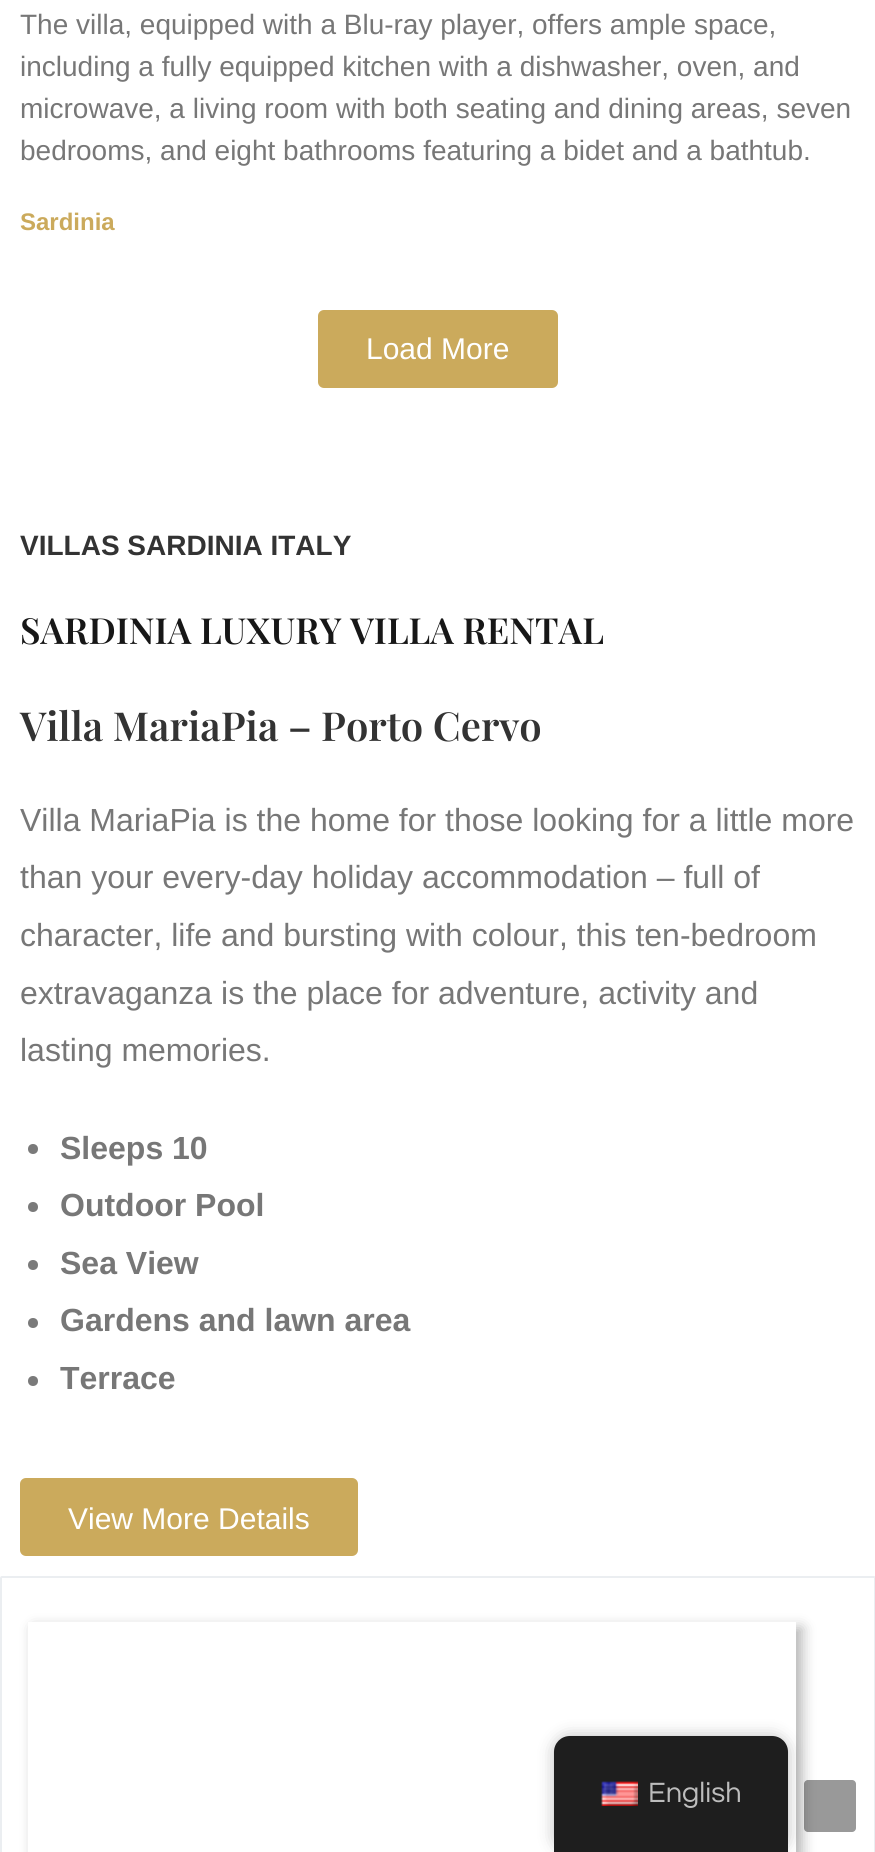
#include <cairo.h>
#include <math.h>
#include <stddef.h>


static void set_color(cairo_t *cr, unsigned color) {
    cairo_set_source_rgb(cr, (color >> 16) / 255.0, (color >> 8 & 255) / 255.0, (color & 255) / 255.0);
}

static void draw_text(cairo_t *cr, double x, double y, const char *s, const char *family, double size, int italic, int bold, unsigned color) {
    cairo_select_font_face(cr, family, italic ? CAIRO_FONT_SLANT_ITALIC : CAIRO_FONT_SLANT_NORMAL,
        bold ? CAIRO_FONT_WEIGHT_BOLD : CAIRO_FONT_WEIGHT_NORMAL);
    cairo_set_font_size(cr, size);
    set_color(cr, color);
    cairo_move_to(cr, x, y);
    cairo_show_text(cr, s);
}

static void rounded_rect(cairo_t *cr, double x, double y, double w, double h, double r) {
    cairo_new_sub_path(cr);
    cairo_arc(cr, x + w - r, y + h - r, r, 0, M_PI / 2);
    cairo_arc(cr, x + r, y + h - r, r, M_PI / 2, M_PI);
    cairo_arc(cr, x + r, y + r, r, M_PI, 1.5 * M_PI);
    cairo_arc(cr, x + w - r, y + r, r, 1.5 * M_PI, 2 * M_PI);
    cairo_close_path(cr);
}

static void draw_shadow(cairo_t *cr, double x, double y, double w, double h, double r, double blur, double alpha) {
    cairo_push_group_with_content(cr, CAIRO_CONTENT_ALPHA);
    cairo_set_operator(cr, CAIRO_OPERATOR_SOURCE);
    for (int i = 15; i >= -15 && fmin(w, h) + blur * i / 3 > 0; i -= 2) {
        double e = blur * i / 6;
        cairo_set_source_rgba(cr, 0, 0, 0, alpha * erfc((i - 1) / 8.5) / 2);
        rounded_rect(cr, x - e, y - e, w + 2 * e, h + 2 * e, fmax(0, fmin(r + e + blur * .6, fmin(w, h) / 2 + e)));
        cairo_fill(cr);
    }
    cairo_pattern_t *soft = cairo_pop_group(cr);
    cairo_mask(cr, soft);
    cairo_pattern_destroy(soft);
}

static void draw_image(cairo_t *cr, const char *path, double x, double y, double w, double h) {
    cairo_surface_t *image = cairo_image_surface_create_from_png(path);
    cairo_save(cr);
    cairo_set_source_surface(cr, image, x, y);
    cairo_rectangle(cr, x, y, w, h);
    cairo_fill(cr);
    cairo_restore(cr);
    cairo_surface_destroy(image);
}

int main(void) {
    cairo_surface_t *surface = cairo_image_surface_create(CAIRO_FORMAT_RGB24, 875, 1852);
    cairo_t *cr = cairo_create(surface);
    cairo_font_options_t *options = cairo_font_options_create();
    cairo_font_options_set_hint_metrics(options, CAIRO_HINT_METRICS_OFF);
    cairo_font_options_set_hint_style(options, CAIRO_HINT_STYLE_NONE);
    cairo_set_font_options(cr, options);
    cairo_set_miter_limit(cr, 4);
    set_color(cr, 0xFFFFFF);
    cairo_paint(cr);
    draw_text(cr, 20, 34, "The villa, equipped with a Blu-ray player, offers ample space,", "Liberation Sans", 28, 0, 0, 0x777777);
    draw_text(cr, 20, 76, "including a fully equipped kitchen with a dishwasher, oven, and", "Liberation Sans", 28, 0, 0, 0x777777);
    draw_text(cr, 20, 118, "microwave, a living room with both seating and dining areas, seven", "Liberation Sans", 28, 0, 0, 0x777777);
    draw_text(cr, 20, 160, "bedrooms, and eight bathrooms featuring a bidet and a bathtub.", "Liberation Sans", 28, 0, 0, 0x777777);
    draw_text(cr, 20, 230, "Sardinia", "Liberation Sans", 24, 0, 1, 0xCBAA5C);
    rounded_rect(cr, 318, 310, 240, 78, 6);
    cairo_fill(cr);
    draw_text(cr, 366, 359, "Load More", "Liberation Sans", 30, 0, 0, 0xFFFFFF);
    draw_text(cr, 20, 555, "VILLAS SARDINIA ITALY", "Liberation Sans", 28, 0, 1, 0x333333);
    draw_text(cr, 20, 644, "SARDINIA LUXURY VILLA RENTAL", "Playfair Display SemiBold", 36, 0, 0, 0x171717);
    draw_text(cr, 20, 741, "Villa MariaPia – Porto Cervo", "Playfair Display SemiBold", 40, 0, 0, 0x333333);
    draw_text(cr, 20, 831, "Villa MariaPia is the home for those looking for a little more", "Liberation Sans", 32, 0, 0, 0x777777);
    draw_text(cr, 20, 888, "than your every-day holiday accommodation – full of", "Liberation Sans", 32, 0, 0, 0x777777);
    draw_text(cr, 20, 946, "character, life and bursting with colour, this ten-bedroom", "Liberation Sans", 32, 0, 0, 0x777777);
    draw_text(cr, 20, 1004, "extravaganza is the place for adventure, activity and", "Liberation Sans", 32, 0, 0, 0x777777);
    draw_text(cr, 20, 1061, "lasting memories.", "Liberation Sans", 32, 0, 0, 0x777777);
    set_color(cr, 0x7A7A7A);
    cairo_new_path(cr);
    cairo_arc(cr, 33, 1149, 5, 0, 2 * M_PI);
    cairo_fill(cr);
    draw_text(cr, 60, 1159, "Sleeps 10", "Liberation Sans", 32, 0, 1, 0x777777);
    set_color(cr, 0x7A7A7A);
    cairo_new_path(cr);
    cairo_arc(cr, 33, 1207, 5, 0, 2 * M_PI);
    cairo_fill(cr);
    draw_text(cr, 60, 1216, "Outdoor Pool", "Liberation Sans", 32, 0, 1, 0x777777);
    set_color(cr, 0x7A7A7A);
    cairo_new_path(cr);
    cairo_arc(cr, 33, 1265, 5, 0, 2 * M_PI);
    cairo_fill(cr);
    draw_text(cr, 60, 1274, "Sea View", "Liberation Sans", 32, 0, 1, 0x777777);
    set_color(cr, 0x7A7A7A);
    cairo_new_path(cr);
    cairo_arc(cr, 33, 1323, 5, 0, 2 * M_PI);
    cairo_fill(cr);
    draw_text(cr, 60, 1331, "Gardens and lawn area", "Liberation Sans", 32, 0, 1, 0x777777);
    set_color(cr, 0x7A7A7A);
    cairo_new_path(cr);
    cairo_arc(cr, 33, 1381, 5, 0, 2 * M_PI);
    cairo_fill(cr);
    draw_text(cr, 60, 1389, "Terrace", "Liberation Sans", 32, 0, 1, 0x777777);
    set_color(cr, 0xCBAA5C);
    rounded_rect(cr, 20, 1478, 338, 78, 6);
    cairo_fill(cr);
    draw_text(cr, 68, 1529, "View More Details", "Liberation Sans", 30, 0, 0, 0xFFFFFF);
    rounded_rect(cr, 1, 1577, 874, 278, 1);
    set_color(cr, 0xEBEEF1);
    cairo_stroke(cr);
    cairo_save(cr);
    cairo_set_fill_rule(cr, CAIRO_FILL_RULE_EVEN_ODD);
    cairo_new_path(cr);
    cairo_move_to(cr, 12, 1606);
    cairo_line_to(cr, 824, 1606);
    cairo_line_to(cr, 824, 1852);
    cairo_line_to(cr, 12, 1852);
    cairo_close_path(cr);
    cairo_move_to(cr, 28, 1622);
    cairo_line_to(cr, 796, 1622);
    cairo_line_to(cr, 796, 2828);
    cairo_line_to(cr, 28, 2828);
    cairo_close_path(cr);
    cairo_clip(cr);
    set_color(cr, 0x000000);
    draw_shadow(cr, 34, 1628, 768, 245, 0, 7, 0.3);
    cairo_restore(cr);
    cairo_set_source_rgba(cr, 0, 0, 0, 0.4);
    rounded_rect(cr, 804, 1780, 52, 52, 4);
    cairo_fill(cr);
    set_color(cr, 0x000000);
    draw_shadow(cr, 554, 1736, 234, 116, 16, 8, 0.25);
    set_color(cr, 0x1E1E1E);
    cairo_new_path(cr);
    cairo_move_to(cr, 570, 1736);
    cairo_line_to(cr, 772, 1736);
    cairo_curve_to(cr, 781, 1736, 788, 1743, 788, 1752);
    cairo_line_to(cr, 788, 1852);
    cairo_line_to(cr, 554, 1852);
    cairo_line_to(cr, 554, 1752);
    cairo_curve_to(cr, 554, 1743, 561, 1736, 570, 1736);
    cairo_close_path(cr);
    cairo_fill(cr);
    draw_image(cr, "assets/img1.png", 601, 1781, 37, 25);
    draw_text(cr, 648, 1802, "English", "Questrial", 29, 0, 0, 0xBDBDBD);
    cairo_surface_write_to_png(surface, "output.png");
    cairo_font_options_destroy(options);
    cairo_destroy(cr);
    cairo_surface_destroy(surface);
    return 0;
}
